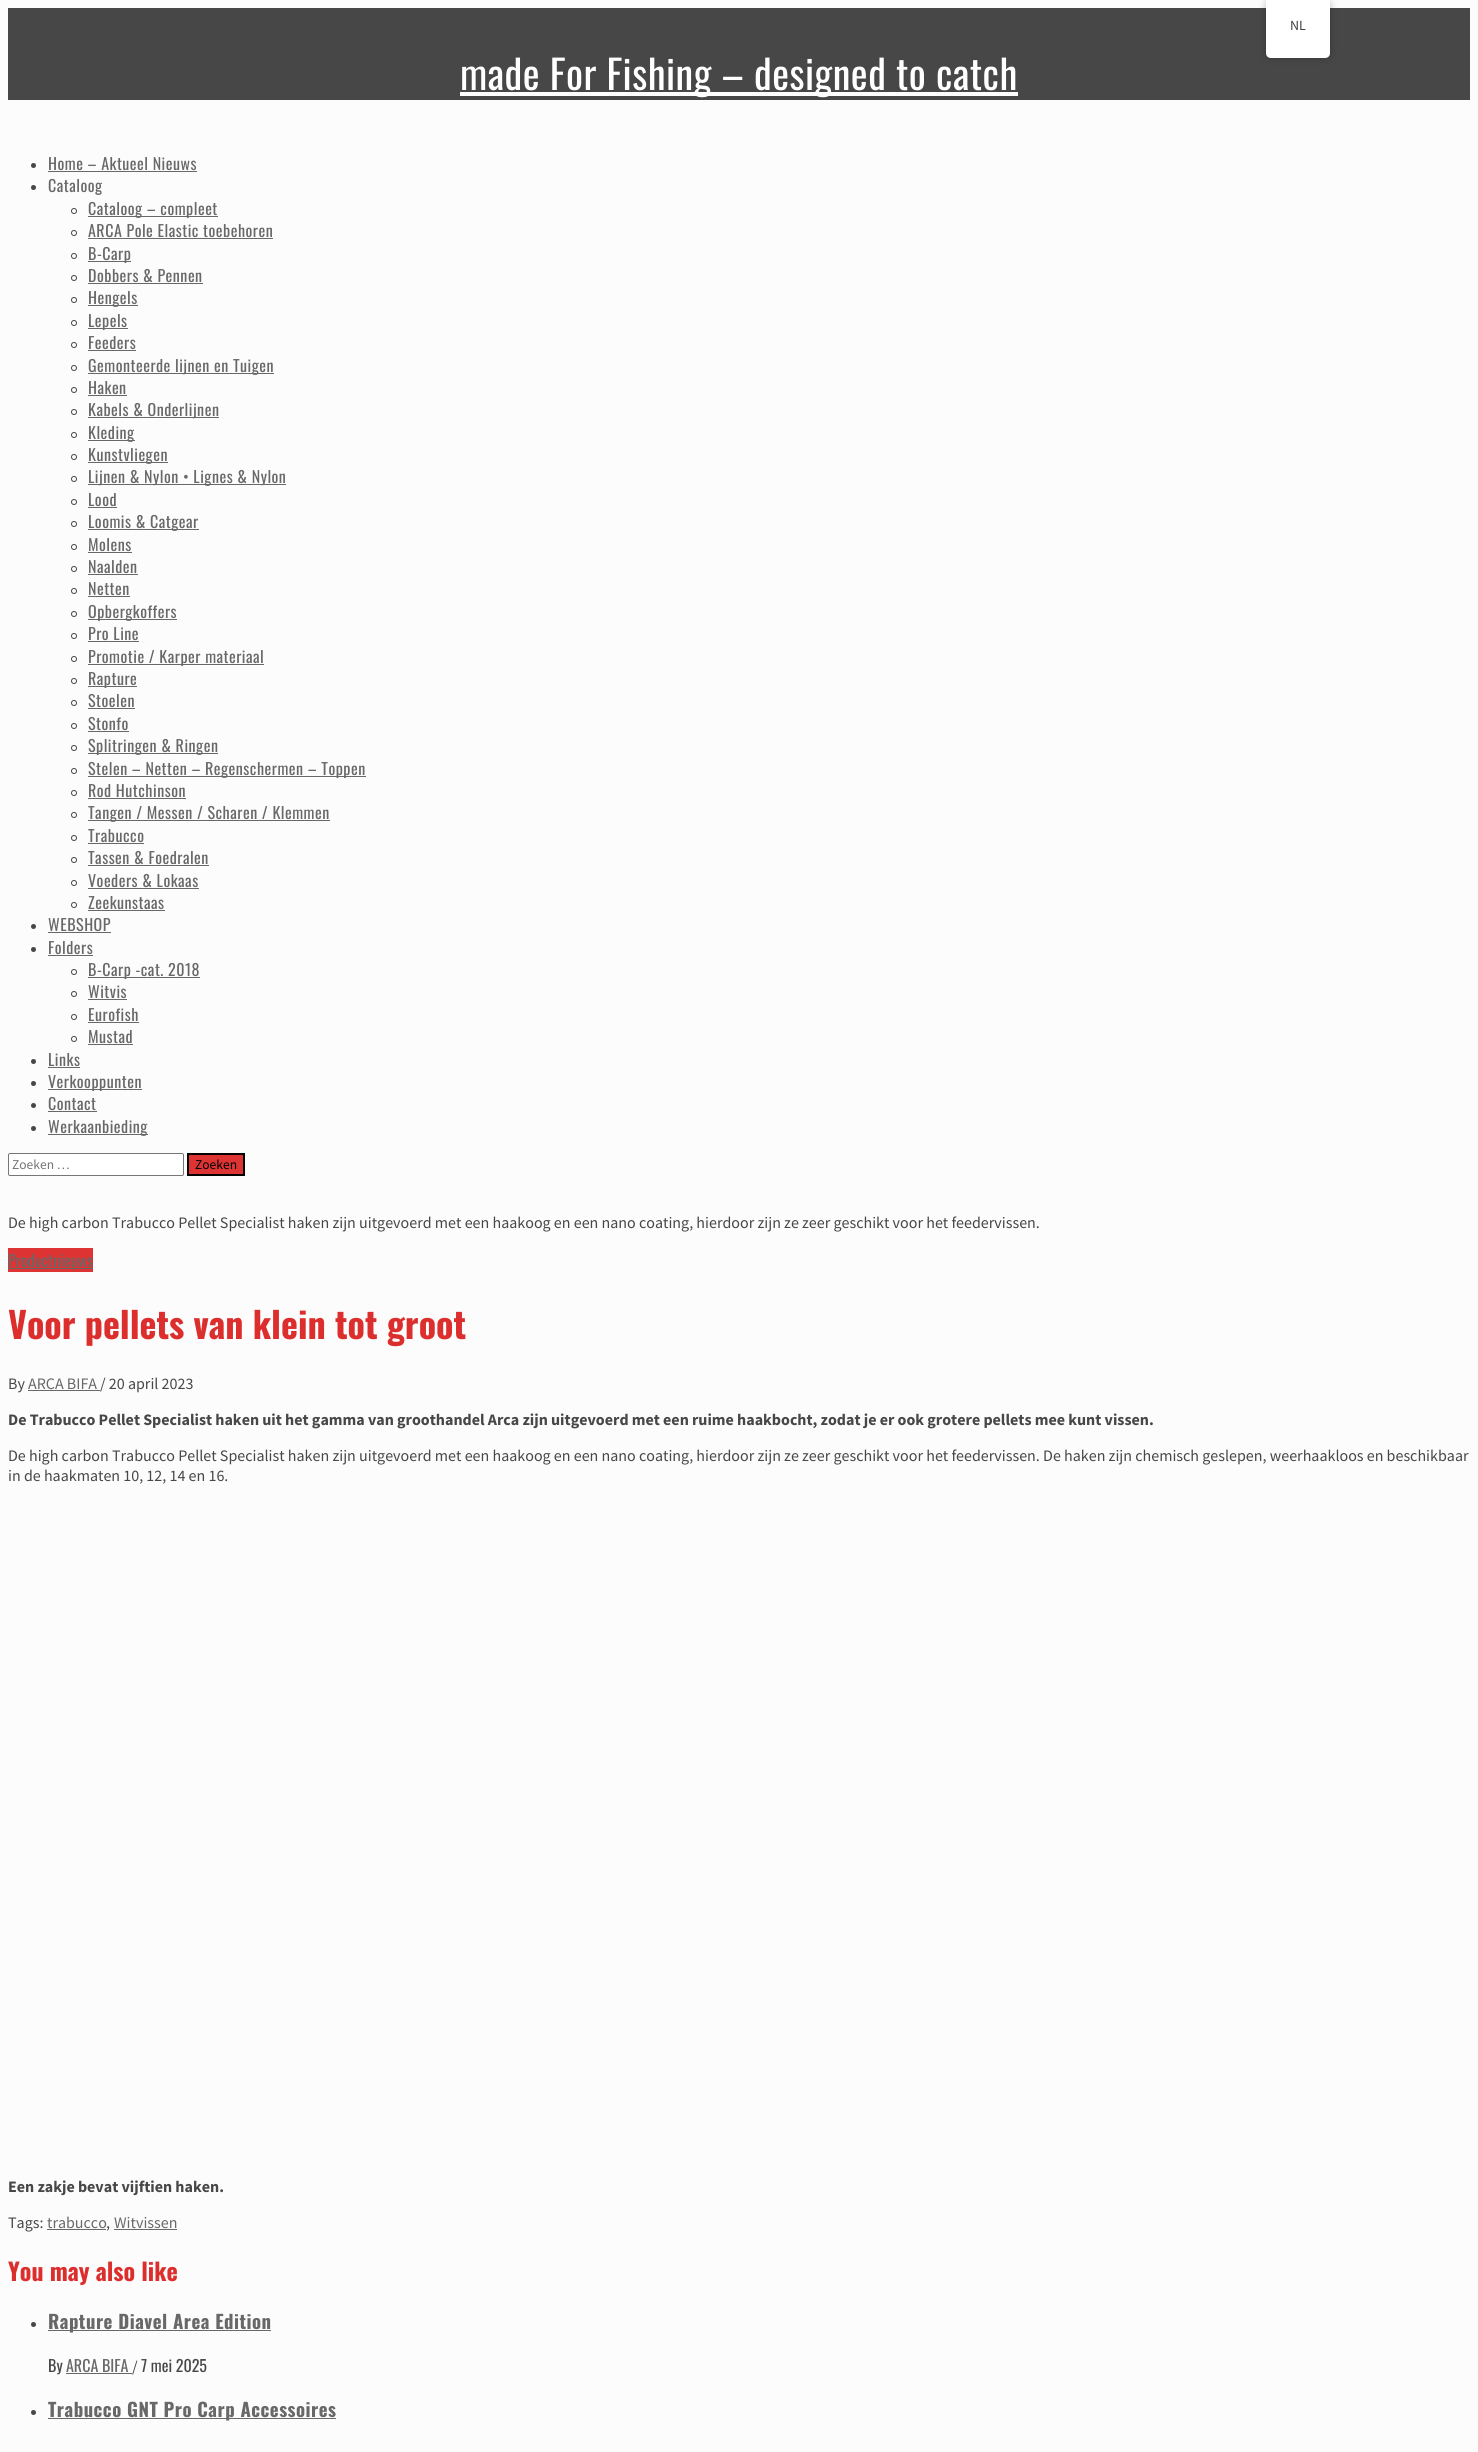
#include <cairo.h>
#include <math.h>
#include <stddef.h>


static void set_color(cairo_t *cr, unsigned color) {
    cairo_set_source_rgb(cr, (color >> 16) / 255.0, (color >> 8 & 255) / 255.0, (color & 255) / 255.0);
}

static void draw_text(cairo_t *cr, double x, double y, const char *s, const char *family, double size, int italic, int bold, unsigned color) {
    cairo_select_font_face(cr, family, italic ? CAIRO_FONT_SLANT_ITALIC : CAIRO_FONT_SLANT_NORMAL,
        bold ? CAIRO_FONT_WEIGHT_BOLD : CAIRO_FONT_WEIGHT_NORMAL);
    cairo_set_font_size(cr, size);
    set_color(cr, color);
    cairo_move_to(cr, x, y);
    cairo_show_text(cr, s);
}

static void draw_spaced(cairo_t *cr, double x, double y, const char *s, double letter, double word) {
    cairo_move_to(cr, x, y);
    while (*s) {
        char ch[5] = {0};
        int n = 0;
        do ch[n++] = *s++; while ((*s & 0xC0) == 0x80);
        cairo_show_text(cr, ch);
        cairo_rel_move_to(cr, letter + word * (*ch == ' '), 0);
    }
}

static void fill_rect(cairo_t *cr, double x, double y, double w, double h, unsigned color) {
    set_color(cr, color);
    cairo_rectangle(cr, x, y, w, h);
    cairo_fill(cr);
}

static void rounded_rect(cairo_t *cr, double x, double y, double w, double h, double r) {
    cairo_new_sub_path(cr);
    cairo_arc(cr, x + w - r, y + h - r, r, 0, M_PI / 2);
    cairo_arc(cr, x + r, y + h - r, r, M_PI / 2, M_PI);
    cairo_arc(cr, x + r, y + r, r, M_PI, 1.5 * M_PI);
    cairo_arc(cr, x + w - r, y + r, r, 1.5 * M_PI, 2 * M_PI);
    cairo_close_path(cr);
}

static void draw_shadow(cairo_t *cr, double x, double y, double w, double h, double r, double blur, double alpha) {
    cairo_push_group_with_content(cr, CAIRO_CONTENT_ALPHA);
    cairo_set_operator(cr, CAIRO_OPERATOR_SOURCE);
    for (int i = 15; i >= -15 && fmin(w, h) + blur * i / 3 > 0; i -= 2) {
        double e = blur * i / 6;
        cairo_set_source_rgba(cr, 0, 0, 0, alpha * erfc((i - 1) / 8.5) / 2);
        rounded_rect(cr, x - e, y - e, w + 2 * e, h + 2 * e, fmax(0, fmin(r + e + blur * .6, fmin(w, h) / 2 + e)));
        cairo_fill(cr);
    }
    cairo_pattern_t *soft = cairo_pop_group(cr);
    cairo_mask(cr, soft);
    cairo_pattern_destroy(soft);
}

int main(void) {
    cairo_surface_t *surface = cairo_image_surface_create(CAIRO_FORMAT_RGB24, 1478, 2452);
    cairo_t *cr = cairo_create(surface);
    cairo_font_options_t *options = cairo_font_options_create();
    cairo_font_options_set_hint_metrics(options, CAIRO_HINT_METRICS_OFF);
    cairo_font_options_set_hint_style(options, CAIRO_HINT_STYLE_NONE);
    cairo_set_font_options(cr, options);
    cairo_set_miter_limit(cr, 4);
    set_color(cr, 0xFCFCFC);
    cairo_paint(cr);
    fill_rect(cr, 8, 8, 1462, 92, 0x474747);
    set_color(cr, 0x000000);
    draw_shadow(cr, 1266, 0, 64, 58, 5, 4, 0.25);
    set_color(cr, 0xFFFFFF);
    cairo_new_path(cr);
    cairo_move_to(cr, 1266, 0);
    cairo_line_to(cr, 1330, 0);
    cairo_line_to(cr, 1330, 53);
    cairo_curve_to(cr, 1330, 56, 1328, 58, 1325, 58);
    cairo_line_to(cr, 1271, 58);
    cairo_curve_to(cr, 1268, 58, 1266, 56, 1266, 53);
    cairo_close_path(cr);
    cairo_fill(cr);
    draw_text(cr, 1290, 30, "NL", "Source Sans Pro", 14, 0, 0, 0x404040);
    fill_rect(cr, 460, 92, 558, 4, 0xFFFFFF);
    cairo_select_font_face(cr, "Oswald", CAIRO_FONT_SLANT_NORMAL, CAIRO_FONT_WEIGHT_NORMAL);
    cairo_set_font_size(cr, 40);
    draw_spaced(cr, 460, 90, "made For Fishing – designed to catch", 0.5, 0);
    set_color(cr, 0x474747);
    cairo_new_path(cr);
    cairo_arc(cr, 33.5, 165.5, 2.5, 0, 2 * M_PI);
    cairo_fill(cr);
    cairo_set_font_size(cr, 16);
    set_color(cr, 0x686868);
    draw_spaced(cr, 48, 170, "Home – Aktueel Nieuws", 0.5, 0);
    fill_rect(cr, 48, 171, 149, 1, 0x686868);
    set_color(cr, 0x474747);
    cairo_new_path(cr);
    cairo_arc(cr, 33.5, 187.5, 2.5, 0, 2 * M_PI);
    cairo_fill(cr);
    set_color(cr, 0x686868);
    draw_spaced(cr, 48, 192, "Cataloog", 0.5, 0);
    cairo_new_path(cr);
    cairo_arc(cr, 74, 211, 2.5, 0, 2 * M_PI);
    set_color(cr, 0x474747);
    cairo_set_line_width(cr, 1);
    cairo_stroke(cr);
    fill_rect(cr, 88, 216, 130, 1, 0x686868);
    draw_spaced(cr, 88, 215, "Cataloog – compleet", 0.5, 0);
    cairo_new_path(cr);
    cairo_arc(cr, 74, 233, 2.5, 0, 2 * M_PI);
    set_color(cr, 0x474747);
    cairo_stroke(cr);
    set_color(cr, 0x686868);
    draw_spaced(cr, 88, 237, "ARCA Pole Elastic toebehoren", 0.5, 0);
    fill_rect(cr, 88, 238, 185, 1, 0x686868);
    cairo_new_path(cr);
    cairo_arc(cr, 74, 256, 2.5, 0, 2 * M_PI);
    set_color(cr, 0x474747);
    cairo_stroke(cr);
    fill_rect(cr, 88, 261, 43, 1, 0x686868);
    draw_spaced(cr, 88, 260, "B-Carp", 0.5, 0);
    cairo_new_path(cr);
    cairo_arc(cr, 74, 278, 2.5, 0, 2 * M_PI);
    set_color(cr, 0x474747);
    cairo_stroke(cr);
    set_color(cr, 0x686868);
    draw_spaced(cr, 88, 282, "Dobbers & Pennen", 0.5, 0);
    fill_rect(cr, 88, 283, 115, 1, 0x686868);
    cairo_new_path(cr);
    cairo_arc(cr, 74, 300, 2.5, 0, 2 * M_PI);
    set_color(cr, 0x474747);
    cairo_stroke(cr);
    fill_rect(cr, 88, 305, 50, 1, 0x686868);
    draw_spaced(cr, 88, 304, "Hengels", 0.5, 0);
    cairo_new_path(cr);
    cairo_arc(cr, 74, 323, 2.5, 0, 2 * M_PI);
    set_color(cr, 0x474747);
    cairo_stroke(cr);
    fill_rect(cr, 88, 328, 40, 1, 0x686868);
    draw_spaced(cr, 88, 327, "Lepels", 0.5, 0);
    cairo_new_path(cr);
    cairo_arc(cr, 74, 345, 2.5, 0, 2 * M_PI);
    set_color(cr, 0x474747);
    cairo_stroke(cr);
    set_color(cr, 0x686868);
    draw_spaced(cr, 88, 349, "Feeders", 0.5, 0);
    fill_rect(cr, 88, 350, 48, 1, 0x686868);
    cairo_new_path(cr);
    cairo_arc(cr, 74, 368, 2.5, 0, 2 * M_PI);
    set_color(cr, 0x474747);
    cairo_stroke(cr);
    fill_rect(cr, 88, 373, 186, 1, 0x686868);
    draw_spaced(cr, 88, 372, "Gemonteerde lijnen en Tuigen", 0.5, 0);
    cairo_new_path(cr);
    cairo_arc(cr, 74, 390, 2.5, 0, 2 * M_PI);
    set_color(cr, 0x474747);
    cairo_stroke(cr);
    set_color(cr, 0x686868);
    draw_spaced(cr, 88, 394, "Haken", 0.5, 0);
    fill_rect(cr, 88, 395, 39, 1, 0x686868);
    cairo_new_path(cr);
    cairo_arc(cr, 74, 412, 2.5, 0, 2 * M_PI);
    set_color(cr, 0x474747);
    cairo_stroke(cr);
    fill_rect(cr, 88, 417, 131, 1, 0x686868);
    draw_spaced(cr, 88, 416, "Kabels & Onderlijnen", 0.5, 0);
    cairo_new_path(cr);
    cairo_arc(cr, 74, 435, 2.5, 0, 2 * M_PI);
    set_color(cr, 0x474747);
    cairo_stroke(cr);
    fill_rect(cr, 88, 440, 47, 1, 0x686868);
    draw_spaced(cr, 88, 439, "Kleding", 0.5, 0);
    cairo_new_path(cr);
    cairo_arc(cr, 74, 457, 2.5, 0, 2 * M_PI);
    set_color(cr, 0x474747);
    cairo_stroke(cr);
    fill_rect(cr, 88, 462, 80, 1, 0x686868);
    draw_spaced(cr, 88, 461, "Kunstvliegen", 0.5, 0);
    cairo_new_path(cr);
    cairo_arc(cr, 74, 479, 2.5, 0, 2 * M_PI);
    set_color(cr, 0x474747);
    cairo_stroke(cr);
    fill_rect(cr, 88, 484, 198, 1, 0x686868);
    draw_spaced(cr, 88, 483, "Lijnen & Nylon • Lignes & Nylon", 0.5, 0);
    cairo_new_path(cr);
    cairo_arc(cr, 74, 502, 2.5, 0, 2 * M_PI);
    set_color(cr, 0x474747);
    cairo_stroke(cr);
    set_color(cr, 0x686868);
    draw_spaced(cr, 88, 506, "Lood", 0.5, 0);
    fill_rect(cr, 88, 507, 29, 1, 0x686868);
    cairo_new_path(cr);
    cairo_arc(cr, 74, 524, 2.5, 0, 2 * M_PI);
    set_color(cr, 0x474747);
    cairo_stroke(cr);
    fill_rect(cr, 88, 529, 111, 1, 0x686868);
    draw_spaced(cr, 88, 528, "Loomis & Catgear", 0.5, 0);
    cairo_new_path(cr);
    cairo_arc(cr, 74, 547, 2.5, 0, 2 * M_PI);
    set_color(cr, 0x474747);
    cairo_stroke(cr);
    set_color(cr, 0x686868);
    draw_spaced(cr, 88, 551, "Molens", 0.5, 0);
    fill_rect(cr, 88, 552, 44, 1, 0x686868);
    cairo_new_path(cr);
    cairo_arc(cr, 74, 569, 2.5, 0, 2 * M_PI);
    set_color(cr, 0x474747);
    cairo_stroke(cr);
    set_color(cr, 0x686868);
    draw_spaced(cr, 88, 573, "Naalden", 0.5, 0);
    fill_rect(cr, 88, 574, 50, 1, 0x686868);
    cairo_new_path(cr);
    cairo_arc(cr, 74, 591, 2.5, 0, 2 * M_PI);
    set_color(cr, 0x474747);
    cairo_stroke(cr);
    set_color(cr, 0x686868);
    draw_spaced(cr, 88, 595, "Netten", 0.5, 0);
    fill_rect(cr, 88, 596, 42, 1, 0x686868);
    cairo_new_path(cr);
    cairo_arc(cr, 74, 614, 2.5, 0, 2 * M_PI);
    set_color(cr, 0x474747);
    cairo_stroke(cr);
    fill_rect(cr, 88, 619, 89, 1, 0x686868);
    draw_spaced(cr, 88, 618, "Opbergkoffers", 0.5, 0);
    cairo_new_path(cr);
    cairo_arc(cr, 74, 636, 2.5, 0, 2 * M_PI);
    set_color(cr, 0x474747);
    cairo_stroke(cr);
    set_color(cr, 0x686868);
    draw_spaced(cr, 88, 640, "Pro Line", 0.5, 0);
    fill_rect(cr, 88, 641, 51, 1, 0x686868);
    cairo_new_path(cr);
    cairo_arc(cr, 74, 659, 2.5, 0, 2 * M_PI);
    set_color(cr, 0x474747);
    cairo_stroke(cr);
    fill_rect(cr, 88, 664, 176, 1, 0x686868);
    draw_spaced(cr, 88, 663, "Promotie / Karper materiaal", 0.5, 0);
    cairo_new_path(cr);
    cairo_arc(cr, 74, 681, 2.5, 0, 2 * M_PI);
    set_color(cr, 0x474747);
    cairo_stroke(cr);
    fill_rect(cr, 88, 686, 49, 1, 0x686868);
    draw_spaced(cr, 88, 685, "Rapture", 0.5, 0);
    cairo_new_path(cr);
    cairo_arc(cr, 74, 703, 2.5, 0, 2 * M_PI);
    set_color(cr, 0x474747);
    cairo_stroke(cr);
    set_color(cr, 0x686868);
    draw_spaced(cr, 88, 707, "Stoelen", 0.5, 0);
    fill_rect(cr, 88, 708, 47, 1, 0x686868);
    cairo_new_path(cr);
    cairo_arc(cr, 74, 726, 2.5, 0, 2 * M_PI);
    set_color(cr, 0x474747);
    cairo_stroke(cr);
    set_color(cr, 0x686868);
    draw_spaced(cr, 88, 730, "Stonfo", 0.5, 0);
    fill_rect(cr, 88, 731, 41, 1, 0x686868);
    cairo_new_path(cr);
    cairo_arc(cr, 74, 748, 2.5, 0, 2 * M_PI);
    set_color(cr, 0x474747);
    cairo_stroke(cr);
    fill_rect(cr, 88, 753, 130, 1, 0x686868);
    draw_spaced(cr, 88, 752, "Splitringen & Ringen", 0.5, 0);
    cairo_new_path(cr);
    cairo_arc(cr, 74, 771, 2.5, 0, 2 * M_PI);
    set_color(cr, 0x474747);
    cairo_stroke(cr);
    fill_rect(cr, 88, 776, 278, 1, 0x686868);
    draw_spaced(cr, 88, 775, "Stelen – Netten – Regenschermen – Toppen", 0.5, 0);
    cairo_new_path(cr);
    cairo_arc(cr, 74, 793, 2.5, 0, 2 * M_PI);
    set_color(cr, 0x474747);
    cairo_stroke(cr);
    set_color(cr, 0x686868);
    draw_spaced(cr, 88, 797, "Rod Hutchinson", 0.5, 0);
    fill_rect(cr, 88, 798, 98, 1, 0x686868);
    cairo_new_path(cr);
    cairo_arc(cr, 74, 815, 2.5, 0, 2 * M_PI);
    set_color(cr, 0x474747);
    cairo_stroke(cr);
    fill_rect(cr, 88, 820, 242, 1, 0x686868);
    draw_spaced(cr, 88, 819, "Tangen / Messen / Scharen / Klemmen", 0.5, 0);
    cairo_new_path(cr);
    cairo_arc(cr, 74, 838, 2.5, 0, 2 * M_PI);
    set_color(cr, 0x474747);
    cairo_stroke(cr);
    set_color(cr, 0x686868);
    draw_spaced(cr, 88, 842, "Trabucco", 0.5, 0);
    fill_rect(cr, 88, 843, 56, 1, 0x686868);
    cairo_new_path(cr);
    cairo_arc(cr, 74, 860, 2.5, 0, 2 * M_PI);
    set_color(cr, 0x474747);
    cairo_stroke(cr);
    set_color(cr, 0x686868);
    draw_spaced(cr, 88, 864, "Tassen & Foedralen", 0.5, 0);
    fill_rect(cr, 88, 865, 121, 1, 0x686868);
    cairo_new_path(cr);
    cairo_arc(cr, 74, 883, 2.5, 0, 2 * M_PI);
    set_color(cr, 0x474747);
    cairo_stroke(cr);
    set_color(cr, 0x686868);
    draw_spaced(cr, 88, 887, "Voeders & Lokaas", 0.5, 0);
    fill_rect(cr, 88, 888, 111, 1, 0x686868);
    cairo_new_path(cr);
    cairo_arc(cr, 74, 905, 2.5, 0, 2 * M_PI);
    set_color(cr, 0x474747);
    cairo_stroke(cr);
    set_color(cr, 0x686868);
    draw_spaced(cr, 88, 909, "Zeekunstaas", 0.5, 0);
    fill_rect(cr, 88, 910, 77, 1, 0x686868);
    set_color(cr, 0x474747);
    cairo_new_path(cr);
    cairo_arc(cr, 33.5, 926.5, 2.5, 0, 2 * M_PI);
    cairo_fill(cr);
    set_color(cr, 0x686868);
    draw_spaced(cr, 48, 931, "WEBSHOP", 0.5, 0);
    fill_rect(cr, 48, 932, 63, 1, 0x686868);
    set_color(cr, 0x474747);
    cairo_new_path(cr);
    cairo_arc(cr, 33.5, 949.5, 2.5, 0, 2 * M_PI);
    cairo_fill(cr);
    set_color(cr, 0x686868);
    draw_spaced(cr, 48, 954, "Folders", 0.5, 0);
    fill_rect(cr, 48, 955, 45, 1, 0x686868);
    cairo_new_path(cr);
    cairo_arc(cr, 74, 972, 2.5, 0, 2 * M_PI);
    set_color(cr, 0x474747);
    cairo_stroke(cr);
    fill_rect(cr, 88, 977, 112, 1, 0x686868);
    draw_spaced(cr, 88, 976, "B-Carp -cat. 2018", 0.5, 0);
    cairo_new_path(cr);
    cairo_arc(cr, 74, 994, 2.5, 0, 2 * M_PI);
    set_color(cr, 0x474747);
    cairo_stroke(cr);
    set_color(cr, 0x686868);
    draw_spaced(cr, 88, 998, "Witvis", 0.5, 0);
    fill_rect(cr, 88, 999, 39, 1, 0x686868);
    cairo_new_path(cr);
    cairo_arc(cr, 74, 1017, 2.5, 0, 2 * M_PI);
    set_color(cr, 0x474747);
    cairo_stroke(cr);
    set_color(cr, 0x686868);
    draw_spaced(cr, 88, 1021, "Eurofish", 0.5, 0);
    fill_rect(cr, 88, 1022, 51, 1, 0x686868);
    cairo_new_path(cr);
    cairo_arc(cr, 74, 1039, 2.5, 0, 2 * M_PI);
    set_color(cr, 0x474747);
    cairo_stroke(cr);
    set_color(cr, 0x686868);
    draw_spaced(cr, 88, 1043, "Mustad", 0.5, 0);
    fill_rect(cr, 88, 1044, 45, 1, 0x686868);
    set_color(cr, 0x474747);
    cairo_new_path(cr);
    cairo_arc(cr, 33.5, 1061.5, 2.5, 0, 2 * M_PI);
    cairo_fill(cr);
    set_color(cr, 0x686868);
    draw_spaced(cr, 48, 1066, "Links", 0.5, 0);
    fill_rect(cr, 48, 1067, 32, 1, 0x686868);
    set_color(cr, 0x474747);
    cairo_new_path(cr);
    cairo_arc(cr, 33.5, 1083.5, 2.5, 0, 2 * M_PI);
    cairo_fill(cr);
    fill_rect(cr, 48, 1089, 94, 1, 0x686868);
    draw_spaced(cr, 48, 1088, "Verkooppunten", 0.5, 0);
    set_color(cr, 0x474747);
    cairo_new_path(cr);
    cairo_arc(cr, 33.5, 1105.5, 2.5, 0, 2 * M_PI);
    cairo_fill(cr);
    set_color(cr, 0x686868);
    draw_spaced(cr, 48, 1110, "Contact", 0.5, 0);
    fill_rect(cr, 48, 1111, 49, 1, 0x686868);
    set_color(cr, 0x474747);
    cairo_new_path(cr);
    cairo_arc(cr, 33.5, 1128.5, 2.5, 0, 2 * M_PI);
    cairo_fill(cr);
    fill_rect(cr, 48, 1134, 100, 1, 0x686868);
    draw_spaced(cr, 48, 1133, "Werkaanbieding", 0.5, 0);
    set_color(cr, 0xFFFFFF);
    rounded_rect(cr, 8.5, 1153.5, 175, 22, 1.5);
    cairo_fill_preserve(cr);
    set_color(cr, 0x767676);
    cairo_stroke(cr);
    draw_text(cr, 12, 1169, "Zoeken …", "Source Sans Pro", 13.5, 0, 0, 0x757575);
    set_color(cr, 0xDD3333);
    cairo_rectangle(cr, 188, 1154, 56, 21);
    cairo_fill_preserve(cr);
    set_color(cr, 0x000000);
    cairo_set_line_width(cr, 2);
    cairo_stroke(cr);
    draw_text(cr, 195, 1169, "Zoeken", "Source Sans Pro", 13.5, 0, 0, 0x000000);
    draw_text(cr, 8, 1228, "De high carbon Trabucco Pellet Specialist haken zijn uitgevoerd met een haakoog en een nano coating, hierdoor zijn ze zeer geschikt voor het feedervissen.", "Source Sans Pro", 16, 0, 0, 0x474747);
    fill_rect(cr, 8, 1248, 85, 24, 0xDD3333);
    draw_text(cr, 8, 1267, "Productnieuws", "Oswald", 16, 0, 0, 0x686868);
    fill_rect(cr, 8, 1268, 85, 1, 0x686868);
    draw_text(cr, 8, 1339, "Voor pellets van klein tot groot", "Oswald", 36, 0, 1, 0xDD2E2E);
    draw_text(cr, 8, 1389, "By", "Source Sans Pro", 16, 0, 0, 0x474747);
    fill_rect(cr, 28, 1390, 72, 1, 0x686868);
    draw_text(cr, 28, 1389, "ARCA BIFA", "Source Sans Pro", 16, 0, 0, 0x686868);
    draw_text(cr, 100, 1389, "/ 20 april 2023", "Source Sans Pro", 16, 0, 0, 0x474747);
    draw_text(cr, 8, 1425, "De Trabucco Pellet Specialist haken uit het gamma van groothandel Arca zijn uitgevoerd met een ruime haakbocht, zodat je er ook grotere pellets mee kunt vissen.", "Source Sans Pro", 16, 0, 1, 0x474747);
    draw_text(cr, 8, 1461, "De high carbon Trabucco Pellet Specialist haken zijn uitgevoerd met een haakoog en een nano coating, hierdoor zijn ze zeer geschikt voor het feedervissen. De haken zijn chemisch geslepen, weerhaakloos en beschikbaar", "Source Sans Pro", 16, 0, 0, 0x474747);
    draw_text(cr, 8, 1481, "in de haakmaten 10, 12, 14 en 16.", "Source Sans Pro", 16, 0, 0, 0x474747);
    draw_text(cr, 8, 2192, "Een zakje bevat vijftien haken.", "Source Sans Pro", 16, 0, 1, 0x474747);
    draw_text(cr, 8, 2228, "Tags:", "Source Sans Pro", 16, 0, 0, 0x474747);
    draw_text(cr, 47, 2228, "trabucco", "Source Sans Pro", 16, 0, 0, 0x686868);
    draw_text(cr, 106, 2228, ",", "Source Sans Pro", 16, 0, 0, 0x474747);
    fill_rect(cr, 47, 2229, 59, 1, 0x686868);
    fill_rect(cr, 114, 2229, 63, 1, 0x686868);
    draw_text(cr, 114, 2228, "Witvissen", "Source Sans Pro", 16, 0, 0, 0x686868);
    draw_text(cr, 8, 2281, "You may also like", "Oswald", 24, 0, 1, 0xDD2E2E);
    set_color(cr, 0x474747);
    cairo_new_path(cr);
    cairo_arc(cr, 33.5, 2324.5, 2.5, 0, 2 * M_PI);
    cairo_fill(cr);
    fill_rect(cr, 48, 2330, 223, 1, 0x686868);
    cairo_set_font_size(cr, 18.75);
    draw_spaced(cr, 48, 2329, "Rapture Diavel Area Edition", 0.5, 0);
    draw_text(cr, 48, 2372, "By", "Oswald", 16, 0, 0, 0x474747);
    fill_rect(cr, 66, 2373, 66, 1, 0x686868);
    draw_text(cr, 66, 2372, "ARCA BIFA", "Oswald", 16, 0, 0, 0x686868);
    draw_text(cr, 132, 2372, "/", "Source Sans Pro", 16, 0, 0, 0x474747);
    draw_text(cr, 141, 2372, "7 mei 2025", "Oswald", 16, 0, 0, 0x474747);
    cairo_new_path(cr);
    cairo_arc(cr, 33.5, 2412.5, 2.5, 0, 2 * M_PI);
    cairo_fill(cr);
    fill_rect(cr, 48, 2418, 288, 1, 0x686868);
    cairo_select_font_face(cr, "Oswald", CAIRO_FONT_SLANT_NORMAL, CAIRO_FONT_WEIGHT_BOLD);
    cairo_set_font_size(cr, 18.75);
    draw_spaced(cr, 48, 2417, "Trabucco GNT Pro Carp Accessoires", 0.5, 0);
    cairo_surface_write_to_png(surface, "output.png");
    cairo_font_options_destroy(options);
    cairo_destroy(cr);
    cairo_surface_destroy(surface);
    return 0;
}
